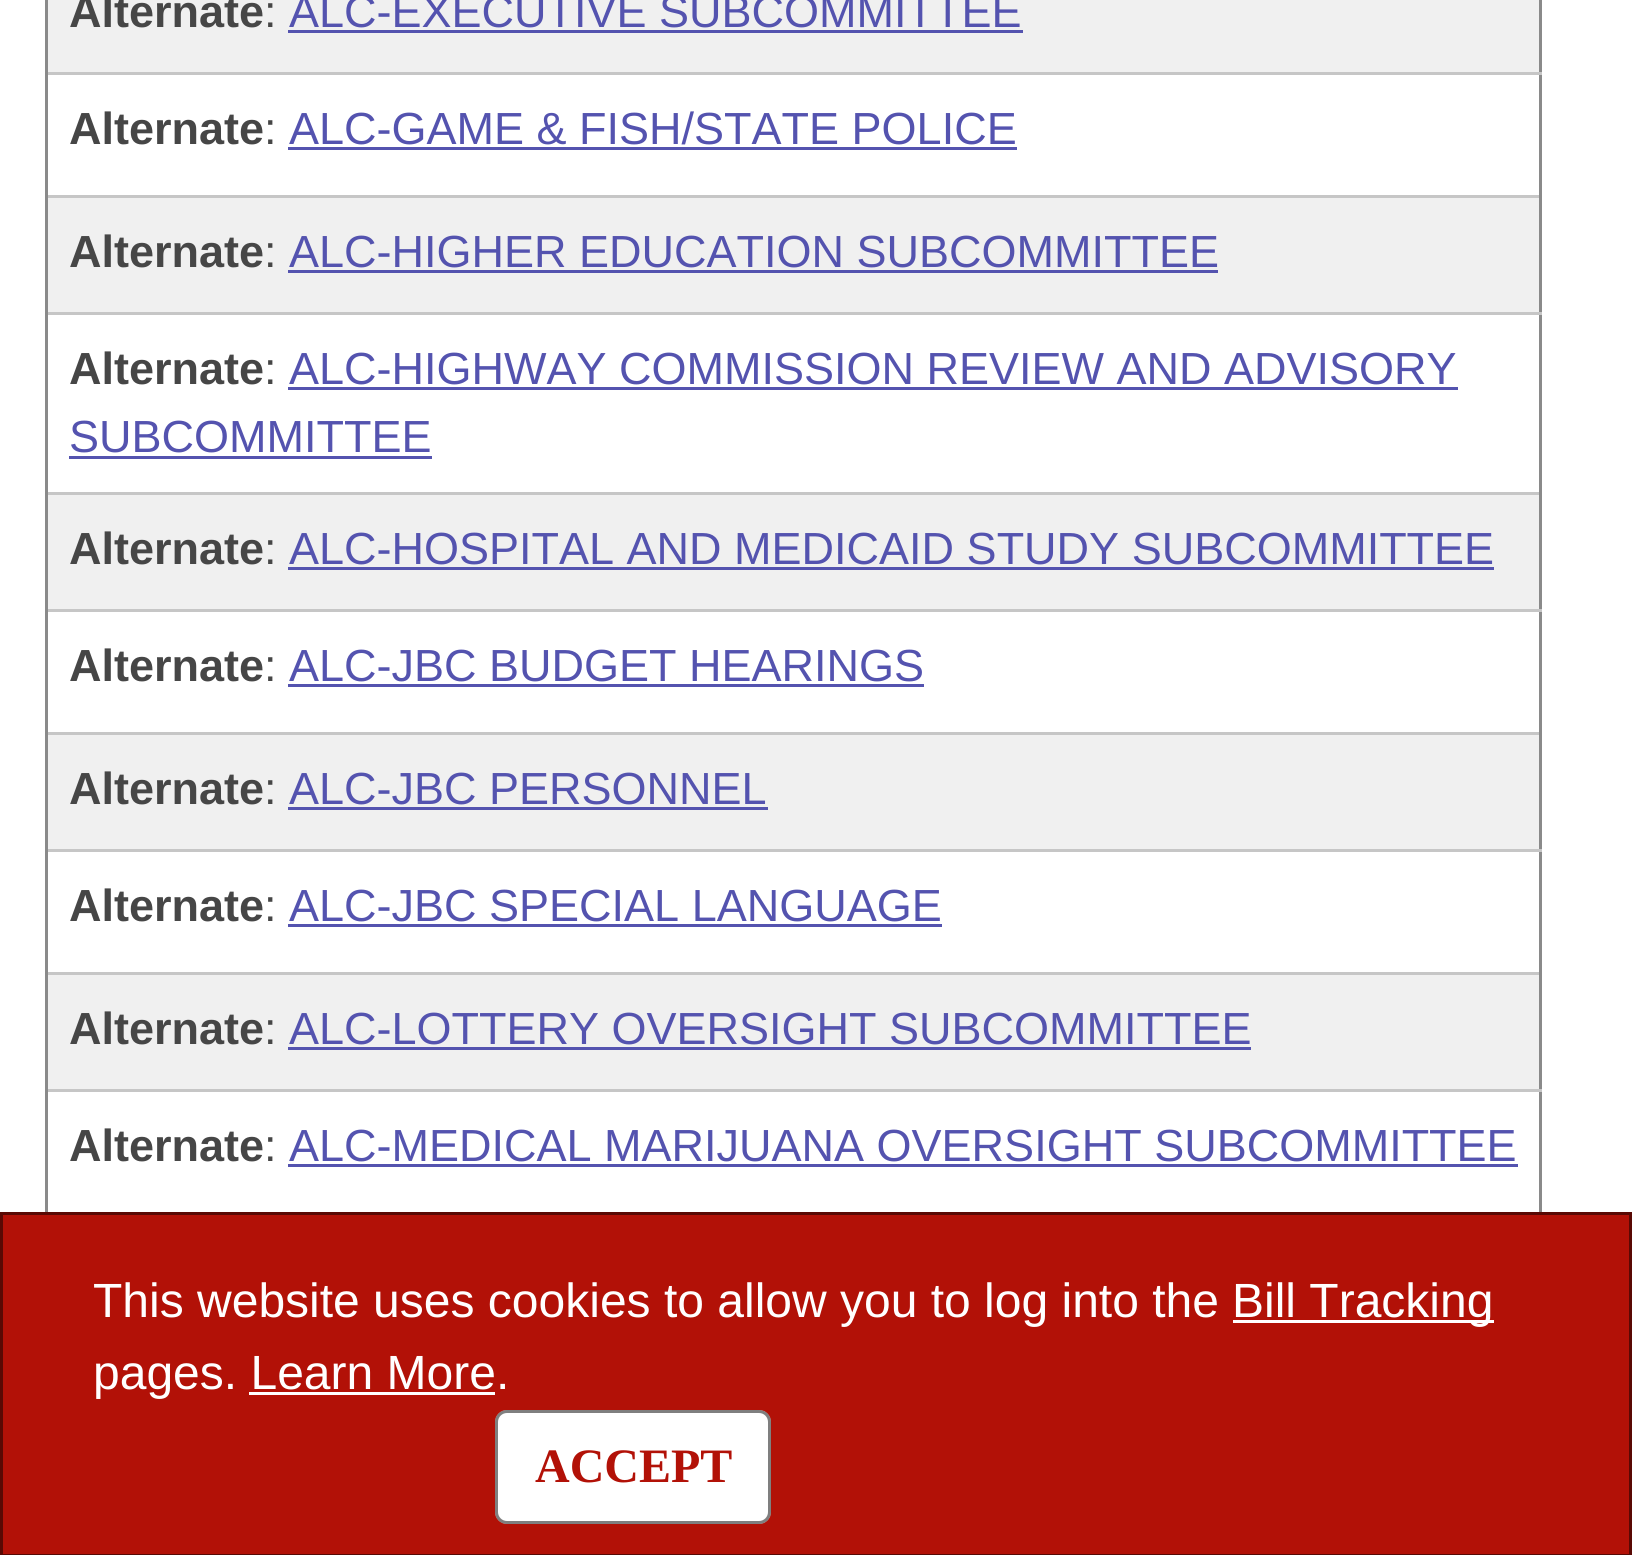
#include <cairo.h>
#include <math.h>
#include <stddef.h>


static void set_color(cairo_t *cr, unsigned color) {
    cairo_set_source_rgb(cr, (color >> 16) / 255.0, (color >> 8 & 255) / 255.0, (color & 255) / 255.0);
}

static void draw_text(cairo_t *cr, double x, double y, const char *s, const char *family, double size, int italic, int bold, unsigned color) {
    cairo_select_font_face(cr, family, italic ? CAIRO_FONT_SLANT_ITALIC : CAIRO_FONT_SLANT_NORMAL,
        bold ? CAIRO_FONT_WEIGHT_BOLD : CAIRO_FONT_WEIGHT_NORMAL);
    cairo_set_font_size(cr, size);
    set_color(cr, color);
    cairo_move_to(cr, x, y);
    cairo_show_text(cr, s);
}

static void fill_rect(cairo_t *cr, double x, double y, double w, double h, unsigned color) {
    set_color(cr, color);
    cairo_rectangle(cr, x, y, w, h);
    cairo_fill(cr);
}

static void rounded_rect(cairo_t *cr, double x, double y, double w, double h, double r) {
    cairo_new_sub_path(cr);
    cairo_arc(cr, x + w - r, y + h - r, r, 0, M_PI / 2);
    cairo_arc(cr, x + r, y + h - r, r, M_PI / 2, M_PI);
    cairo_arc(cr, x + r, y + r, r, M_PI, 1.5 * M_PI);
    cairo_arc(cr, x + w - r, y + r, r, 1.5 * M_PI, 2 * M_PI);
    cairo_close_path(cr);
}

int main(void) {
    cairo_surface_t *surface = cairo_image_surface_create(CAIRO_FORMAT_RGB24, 1632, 1555);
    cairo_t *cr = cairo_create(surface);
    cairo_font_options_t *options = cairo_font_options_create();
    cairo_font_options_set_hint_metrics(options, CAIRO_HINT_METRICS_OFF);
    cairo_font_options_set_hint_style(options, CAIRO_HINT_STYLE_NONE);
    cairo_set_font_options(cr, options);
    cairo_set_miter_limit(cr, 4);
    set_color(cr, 0xFFFFFF);
    cairo_paint(cr);
    fill_rect(cr, 48, 0, 1491, 72, 0xF0F0F0);
    fill_rect(cr, 1539, 0, 3, 195, 0x8A8A8A);
    fill_rect(cr, 45, 72, 1497, 3, 0xC6C6C6);
    fill_rect(cr, 45, 0, 3, 195, 0x8A8A8A);
    draw_text(cr, 69, 27, "Alternate", "Liberation Sans", 45, 0, 1, 0x464646);
    draw_text(cr, 264, 27, ":", "Liberation Sans", 45, 0, 0, 0x464646);
    draw_text(cr, 289, 27, "ALC-EXECUTIVE SUBCOMMITTEE", "Liberation Sans", 45, 0, 0, 0x5453AF);
    fill_rect(cr, 288, 30, 735, 3, 0x5453AF);
    draw_text(cr, 69, 144, "Alternate", "Liberation Sans", 45, 0, 1, 0x464646);
    draw_text(cr, 264, 144, ":", "Liberation Sans", 45, 0, 0, 0x464646);
    draw_text(cr, 289, 144, "ALC-GAME & FISH/STATE POLICE", "Liberation Sans", 45, 0, 0, 0x5453AF);
    fill_rect(cr, 288, 147, 729, 3, 0x5453AF);
    fill_rect(cr, 48, 198, 1491, 114, 0xF0F0F0);
    fill_rect(cr, 45, 195, 1497, 3, 0xC6C6C6);
    fill_rect(cr, 1539, 195, 3, 297, 0x8A8A8A);
    fill_rect(cr, 45, 312, 1497, 3, 0xC6C6C6);
    fill_rect(cr, 45, 195, 3, 297, 0x8A8A8A);
    draw_text(cr, 69, 267, "Alternate", "Liberation Sans", 45, 0, 1, 0x464646);
    draw_text(cr, 264, 267, ":", "Liberation Sans", 45, 0, 0, 0x464646);
    draw_text(cr, 289, 267, "ALC-HIGHER EDUCATION SUBCOMMITTEE", "Liberation Sans", 45, 0, 0, 0x5453AF);
    fill_rect(cr, 288, 270, 930, 3, 0x5453AF);
    draw_text(cr, 69, 384, "Alternate", "Liberation Sans", 45, 0, 1, 0x464646);
    draw_text(cr, 264, 384, ":", "Liberation Sans", 45, 0, 0, 0x464646);
    draw_text(cr, 289, 384, "ALC-HIGHWAY COMMISSION REVIEW AND ADVISORY", "Liberation Sans", 45, 0, 0, 0x5453AF);
    fill_rect(cr, 288, 387, 1170, 3, 0x5453AF);
    draw_text(cr, 69, 452, "SUBCOMMITTEE", "Liberation Sans", 45, 0, 0, 0x5453AF);
    fill_rect(cr, 69, 456, 363, 3, 0x5453AF);
    fill_rect(cr, 48, 495, 1491, 114, 0xF0F0F0);
    fill_rect(cr, 45, 492, 1497, 3, 0xC6C6C6);
    fill_rect(cr, 1539, 492, 3, 240, 0x8A8A8A);
    fill_rect(cr, 45, 609, 1497, 3, 0xC6C6C6);
    fill_rect(cr, 45, 492, 3, 240, 0x8A8A8A);
    draw_text(cr, 69, 564, "Alternate", "Liberation Sans", 45, 0, 1, 0x464646);
    draw_text(cr, 264, 564, ":", "Liberation Sans", 45, 0, 0, 0x464646);
    draw_text(cr, 289, 564, "ALC-HOSPITAL AND MEDICAID STUDY SUBCOMMITTEE", "Liberation Sans", 45, 0, 0, 0x5453AF);
    fill_rect(cr, 288, 567, 1206, 3, 0x5453AF);
    draw_text(cr, 69, 681, "Alternate", "Liberation Sans", 45, 0, 1, 0x464646);
    draw_text(cr, 264, 681, ":", "Liberation Sans", 45, 0, 0, 0x464646);
    draw_text(cr, 289, 681, "ALC-JBC BUDGET HEARINGS", "Liberation Sans", 45, 0, 0, 0x5453AF);
    fill_rect(cr, 288, 684, 636, 3, 0x5453AF);
    fill_rect(cr, 48, 735, 1491, 114, 0xF0F0F0);
    fill_rect(cr, 45, 732, 1497, 3, 0xC6C6C6);
    fill_rect(cr, 1539, 732, 3, 240, 0x8A8A8A);
    fill_rect(cr, 45, 849, 1497, 3, 0xC6C6C6);
    fill_rect(cr, 45, 732, 3, 240, 0x8A8A8A);
    draw_text(cr, 69, 804, "Alternate", "Liberation Sans", 45, 0, 1, 0x464646);
    draw_text(cr, 264, 804, ":", "Liberation Sans", 45, 0, 0, 0x464646);
    draw_text(cr, 289, 804, "ALC-JBC PERSONNEL", "Liberation Sans", 45, 0, 0, 0x5453AF);
    fill_rect(cr, 288, 807, 480, 3, 0x5453AF);
    draw_text(cr, 69, 921, "Alternate", "Liberation Sans", 45, 0, 1, 0x464646);
    draw_text(cr, 264, 921, ":", "Liberation Sans", 45, 0, 0, 0x464646);
    draw_text(cr, 289, 921, "ALC-JBC SPECIAL LANGUAGE", "Liberation Sans", 45, 0, 0, 0x5453AF);
    fill_rect(cr, 288, 924, 654, 3, 0x5453AF);
    fill_rect(cr, 48, 975, 1491, 114, 0xF0F0F0);
    fill_rect(cr, 45, 972, 1497, 3, 0xC6C6C6);
    fill_rect(cr, 1539, 972, 3, 240, 0x8A8A8A);
    fill_rect(cr, 45, 1089, 1497, 3, 0xC6C6C6);
    fill_rect(cr, 45, 972, 3, 240, 0x8A8A8A);
    draw_text(cr, 69, 1044, "Alternate", "Liberation Sans", 45, 0, 1, 0x464646);
    draw_text(cr, 264, 1044, ":", "Liberation Sans", 45, 0, 0, 0x464646);
    draw_text(cr, 289, 1044, "ALC-LOTTERY OVERSIGHT SUBCOMMITTEE", "Liberation Sans", 45, 0, 0, 0x5453AF);
    fill_rect(cr, 288, 1047, 963, 3, 0x5453AF);
    draw_text(cr, 69, 1161, "Alternate", "Liberation Sans", 45, 0, 1, 0x464646);
    draw_text(cr, 264, 1161, ":", "Liberation Sans", 45, 0, 0, 0x464646);
    draw_text(cr, 289, 1161, "ALC-MEDICAL MARIJUANA OVERSIGHT SUBCOMMITTEE", "Liberation Sans", 45, 0, 0, 0x5453AF);
    fill_rect(cr, 288, 1164, 1230, 3, 0x5453AF);
    set_color(cr, 0xB21107);
    cairo_rectangle(cr, 1.5, 1213.5, 1629, 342);
    cairo_fill_preserve(cr);
    set_color(cr, 0x590904);
    cairo_set_line_width(cr, 3);
    cairo_stroke(cr);
    draw_text(cr, 93, 1317, "This website uses cookies to allow you to log into the", "Liberation Sans", 48, 0, 0, 0xFFFFFF);
    fill_rect(cr, 1233, 1320, 261, 3, 0xFFFFFF);
    draw_text(cr, 1232, 1317, "Bill Tracking", "Liberation Sans", 48, 0, 0, 0xFFFFFF);
    draw_text(cr, 93, 1389, "pages. Learn More.", "Liberation Sans", 48, 0, 0, 0xFFFFFF);
    fill_rect(cr, 249, 1392, 246, 3, 0xFFFFFF);
    rounded_rect(cr, 495, 1410, 276, 114, 12);
    cairo_fill(cr);
    rounded_rect(cr, 496.5, 1411.5, 273, 111, 10.5);
    cairo_set_source_rgba(cr, 0, 0, 0, 0.5);
    cairo_stroke(cr);
    draw_text(cr, 535, 1482, "ACCEPT", "Liberation Serif", 48, 0, 1, 0xB21107);
    cairo_surface_write_to_png(surface, "output.png");
    cairo_font_options_destroy(options);
    cairo_destroy(cr);
    cairo_surface_destroy(surface);
    return 0;
}
